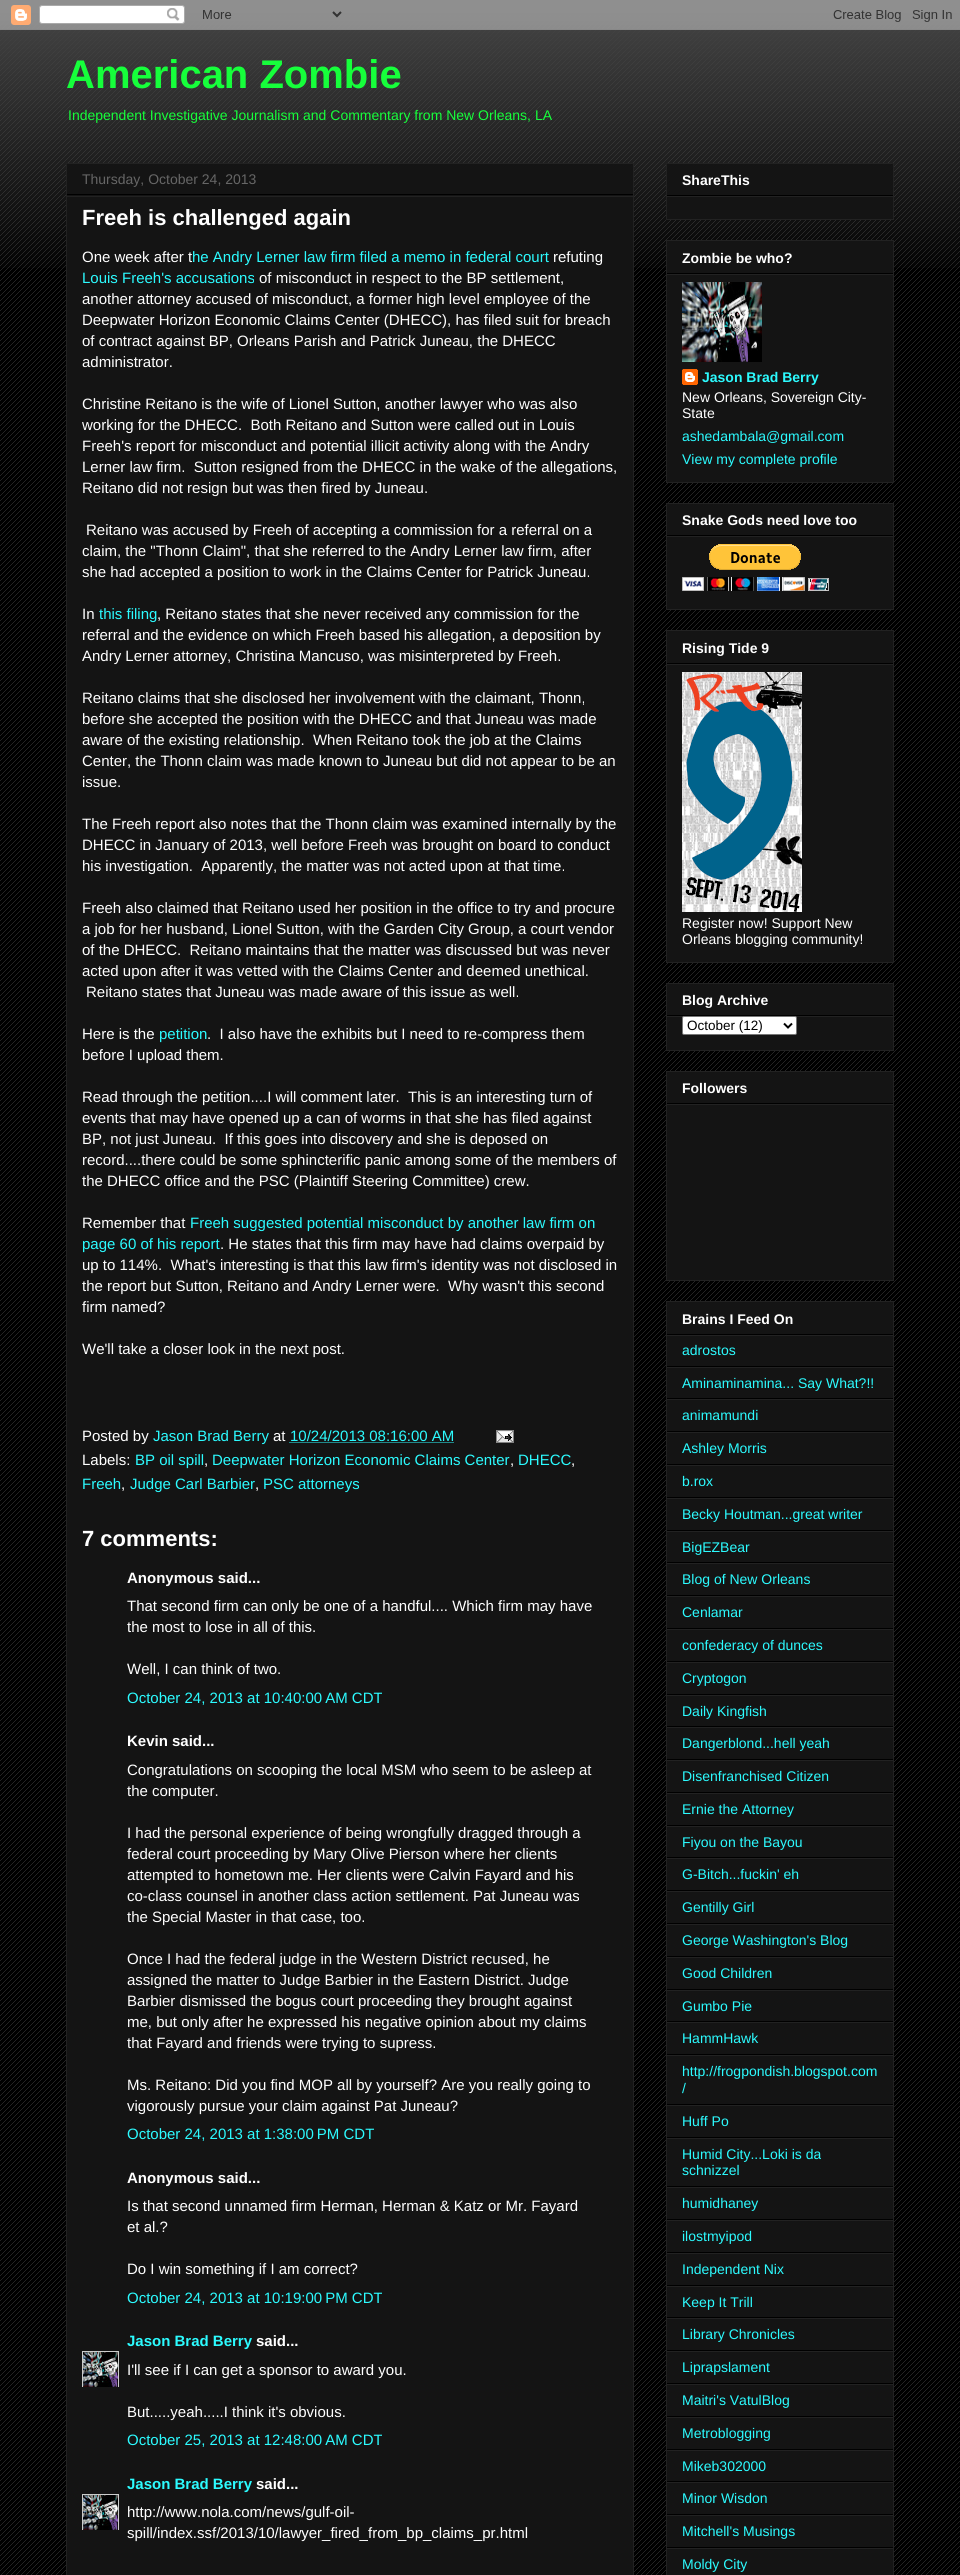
#include <cairo.h>
#include <math.h>
#include <stddef.h>


static void set_color(cairo_t *cr, unsigned color) {
    cairo_set_source_rgb(cr, (color >> 16) / 255.0, (color >> 8 & 255) / 255.0, (color & 255) / 255.0);
}

static void draw_text(cairo_t *cr, double x, double y, const char *s, const char *family, double size, int italic, int bold, unsigned color) {
    cairo_select_font_face(cr, family, italic ? CAIRO_FONT_SLANT_ITALIC : CAIRO_FONT_SLANT_NORMAL,
        bold ? CAIRO_FONT_WEIGHT_BOLD : CAIRO_FONT_WEIGHT_NORMAL);
    cairo_set_font_size(cr, size);
    set_color(cr, color);
    cairo_move_to(cr, x, y);
    cairo_show_text(cr, s);
}

static void fill_rect(cairo_t *cr, double x, double y, double w, double h, unsigned color) {
    set_color(cr, color);
    cairo_rectangle(cr, x, y, w, h);
    cairo_fill(cr);
}

static void rounded_rect(cairo_t *cr, double x, double y, double w, double h, double r) {
    cairo_new_sub_path(cr);
    cairo_arc(cr, x + w - r, y + h - r, r, 0, M_PI / 2);
    cairo_arc(cr, x + r, y + h - r, r, M_PI / 2, M_PI);
    cairo_arc(cr, x + r, y + r, r, M_PI, 1.5 * M_PI);
    cairo_arc(cr, x + w - r, y + r, r, 1.5 * M_PI, 2 * M_PI);
    cairo_close_path(cr);
}

static void draw_image(cairo_t *cr, const char *path, double x, double y, double w, double h) {
    cairo_surface_t *image = cairo_image_surface_create_from_png(path);
    cairo_save(cr);
    cairo_set_source_surface(cr, image, x, y);
    cairo_rectangle(cr, x, y, w, h);
    cairo_fill(cr);
    cairo_restore(cr);
    cairo_surface_destroy(image);
}

int main(void) {
    cairo_surface_t *surface = cairo_image_surface_create(CAIRO_FORMAT_RGB24, 960, 2575);
    cairo_t *cr = cairo_create(surface);
    cairo_font_options_t *options = cairo_font_options_create();
    cairo_font_options_set_hint_metrics(options, CAIRO_HINT_METRICS_OFF);
    cairo_font_options_set_hint_style(options, CAIRO_HINT_STYLE_NONE);
    cairo_set_font_options(cr, options);
    cairo_set_miter_limit(cr, 4);
    set_color(cr, 0x000000);
    cairo_paint(cr);
    draw_image(cr, "assets/img1.png", 0, 13, 960, 2562);
    draw_image(cr, "assets/img2.png", 0, 0, 960, 268);
    draw_image(cr, "assets/img3.png", 0, 0, 960, 30);
    draw_text(cr, 66, 88, "American Zombie", "Liberation Sans", 40, 0, 1, 0x16FF3B);
    draw_text(cr, 68, 120, "Independent Investigative Journalism and Commentary from New Orleans, LA", "Liberation Sans", 14, 0, 0, 0x16FF3B);
    set_color(cr, 0x141414);
    cairo_rectangle(cr, 66.5, 163.5, 567, 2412);
    cairo_fill_preserve(cr);
    set_color(cr, 0x222222);
    cairo_set_line_width(cr, 1);
    cairo_stroke(cr);
    fill_rect(cr, 67, 194, 566, 1, 0x000000);
    draw_text(cr, 82, 184, "Thursday, October 24, 2013", "Liberation Sans", 14, 0, 0, 0x666666);
    fill_rect(cr, 67, 196, 566, 1, 0x222222);
    draw_text(cr, 82, 225, "Freeh is challenged again", "Liberation Sans", 22, 0, 1, 0xFFFFFF);
    draw_text(cr, 82, 262, "One week after t", "Liberation Sans", 15, 0, 0, 0xFFFFFF);
    draw_text(cr, 192, 262, "he Andry Lerner law firm filed a memo in federal court", "Liberation Sans", 15, 0, 0, 0x2CFBFF);
    draw_text(cr, 553, 262, "refuting", "Liberation Sans", 15, 0, 0, 0xFFFFFF);
    draw_text(cr, 82, 283, "Louis Freeh's accusations", "Liberation Sans", 15, 0, 0, 0x2CFBFF);
    draw_text(cr, 259, 283, "of misconduct in respect to the BP settlement,", "Liberation Sans", 15, 0, 0, 0xFFFFFF);
    draw_text(cr, 82, 304, "another attorney accused of misconduct, a former high level employee of the", "Liberation Sans", 15, 0, 0, 0xFFFFFF);
    draw_text(cr, 82, 325, "Deepwater Horizon Economic Claims Center (DHECC), has filed suit for breach", "Liberation Sans", 15, 0, 0, 0xFFFFFF);
    draw_text(cr, 82, 346, "of contract against BP, Orleans Parish and Patrick Juneau, the DHECC", "Liberation Sans", 15, 0, 0, 0xFFFFFF);
    draw_text(cr, 82, 367, "administrator.", "Liberation Sans", 15, 0, 0, 0xFFFFFF);
    draw_text(cr, 82, 409, "Christine Reitano is the wife of Lionel Sutton, another lawyer who was also", "Liberation Sans", 15, 0, 0, 0xFFFFFF);
    draw_text(cr, 82, 430, "working for the DHECC.  Both Reitano and Sutton were called out in Louis", "Liberation Sans", 15, 0, 0, 0xFFFFFF);
    draw_text(cr, 82, 451, "Freeh's report for misconduct and potential illicit activity along with the Andry", "Liberation Sans", 15, 0, 0, 0xFFFFFF);
    draw_text(cr, 82, 472, "Lerner law firm.  Sutton resigned from the DHECC in the wake of the allegations,", "Liberation Sans", 15, 0, 0, 0xFFFFFF);
    draw_text(cr, 82, 493, "Reitano did not resign but was then fired by Juneau.", "Liberation Sans", 15, 0, 0, 0xFFFFFF);
    draw_text(cr, 86, 535, "Reitano was accused by Freeh of accepting a commission for a referral on a", "Liberation Sans", 15, 0, 0, 0xFFFFFF);
    draw_text(cr, 82, 556, "claim, the \"Thonn Claim\", that she referred to the Andry Lerner law firm, after", "Liberation Sans", 15, 0, 0, 0xFFFFFF);
    draw_text(cr, 82, 577, "she had accepted a position to work in the Claims Center for Patrick Juneau.", "Liberation Sans", 15, 0, 0, 0xFFFFFF);
    draw_text(cr, 82, 619, "In", "Liberation Sans", 15, 0, 0, 0xFFFFFF);
    draw_text(cr, 99, 619, "this filing", "Liberation Sans", 15, 0, 0, 0x2CFBFF);
    draw_text(cr, 157, 619, ", Reitano states that she never received any commission for the", "Liberation Sans", 15, 0, 0, 0xFFFFFF);
    draw_text(cr, 82, 640, "referral and the evidence on which Freeh based his allegation, a deposition by", "Liberation Sans", 15, 0, 0, 0xFFFFFF);
    draw_text(cr, 82, 661, "Andry Lerner attorney, Christina Mancuso, was misinterpreted by Freeh.", "Liberation Sans", 15, 0, 0, 0xFFFFFF);
    draw_text(cr, 82, 703, "Reitano claims that she disclosed her involvement with the claimant, Thonn,", "Liberation Sans", 15, 0, 0, 0xFFFFFF);
    draw_text(cr, 82, 724, "before she accepted the position with the DHECC and that Juneau was made", "Liberation Sans", 15, 0, 0, 0xFFFFFF);
    draw_text(cr, 82, 745, "aware of the existing relationship.  When Reitano took the job at the Claims", "Liberation Sans", 15, 0, 0, 0xFFFFFF);
    draw_text(cr, 82, 766, "Center, the Thonn claim was made known to Juneau but did not appear to be an", "Liberation Sans", 15, 0, 0, 0xFFFFFF);
    draw_text(cr, 82, 787, "issue.", "Liberation Sans", 15, 0, 0, 0xFFFFFF);
    draw_text(cr, 82, 829, "The Freeh report also notes that the Thonn claim was examined internally by the", "Liberation Sans", 15, 0, 0, 0xFFFFFF);
    draw_text(cr, 82, 850, "DHECC in January of 2013, well before Freeh was brought on board to conduct", "Liberation Sans", 15, 0, 0, 0xFFFFFF);
    draw_text(cr, 82, 871, "his investigation.  Apparently, the matter was not acted upon at that time.", "Liberation Sans", 15, 0, 0, 0xFFFFFF);
    draw_text(cr, 82, 913, "Freeh also claimed that Reitano used her position in the office to try and procure", "Liberation Sans", 15, 0, 0, 0xFFFFFF);
    draw_text(cr, 82, 934, "a job for her husband, Lionel Sutton, with the Garden City Group, a court vendor", "Liberation Sans", 15, 0, 0, 0xFFFFFF);
    draw_text(cr, 82, 955, "of the DHECC.  Reitano maintains that the matter was discussed but was never", "Liberation Sans", 15, 0, 0, 0xFFFFFF);
    draw_text(cr, 82, 976, "acted upon after it was vetted with the Claims Center and deemed unethical.", "Liberation Sans", 15, 0, 0, 0xFFFFFF);
    draw_text(cr, 86, 997, "Reitano states that Juneau was made aware of this issue as well.", "Liberation Sans", 15, 0, 0, 0xFFFFFF);
    draw_text(cr, 82, 1039, "Here is the", "Liberation Sans", 15, 0, 0, 0xFFFFFF);
    draw_text(cr, 159, 1039, "petition", "Liberation Sans", 15, 0, 0, 0x2CFBFF);
    draw_text(cr, 207, 1039, ".  I also have the exhibits but I need to re-compress them", "Liberation Sans", 15, 0, 0, 0xFFFFFF);
    draw_text(cr, 82, 1060, "before I upload them.", "Liberation Sans", 15, 0, 0, 0xFFFFFF);
    draw_text(cr, 82, 1102, "Read through the petition....I will comment later.  This is an interesting turn of", "Liberation Sans", 15, 0, 0, 0xFFFFFF);
    draw_text(cr, 82, 1123, "events that may have opened up a can of worms in that she has filed against", "Liberation Sans", 15, 0, 0, 0xFFFFFF);
    draw_text(cr, 82, 1144, "BP, not just Juneau.  If this goes into discovery and she is deposed on", "Liberation Sans", 15, 0, 0, 0xFFFFFF);
    draw_text(cr, 82, 1165, "record....there could be some sphincterific panic among some of the members of", "Liberation Sans", 15, 0, 0, 0xFFFFFF);
    draw_text(cr, 82, 1186, "the DHECC office and the PSC (Plaintiff Steering Committee) crew.", "Liberation Sans", 15, 0, 0, 0xFFFFFF);
    draw_text(cr, 82, 1228, "Remember that", "Liberation Sans", 15, 0, 0, 0xFFFFFF);
    draw_text(cr, 190, 1228, "Freeh suggested potential misconduct by another law firm on", "Liberation Sans", 15, 0, 0, 0x2CFBFF);
    draw_text(cr, 82, 1249, "page 60 of his report", "Liberation Sans", 15, 0, 0, 0x2CFBFF);
    draw_text(cr, 220, 1249, ". He states that this firm may have had claims overpaid by", "Liberation Sans", 15, 0, 0, 0xFFFFFF);
    draw_text(cr, 82, 1270, "up to 114%.  What's interesting is that this law firm's identity was not disclosed in", "Liberation Sans", 15, 0, 0, 0xFFFFFF);
    draw_text(cr, 82, 1291, "the report but Sutton, Reitano and Andry Lerner were.  Why wasn't this second", "Liberation Sans", 15, 0, 0, 0xFFFFFF);
    draw_text(cr, 82, 1312, "firm named?", "Liberation Sans", 15, 0, 0, 0xFFFFFF);
    draw_text(cr, 82, 1354, "We'll take a closer look in the next post.", "Liberation Sans", 15, 0, 0, 0xFFFFFF);
    draw_text(cr, 82, 1441, "Posted by", "Liberation Sans", 15, 0, 0, 0xFFFFFF);
    draw_text(cr, 153, 1441, "Jason Brad Berry", "Liberation Sans", 15, 0, 0, 0x2CFBFF);
    draw_text(cr, 273, 1441, "at", "Liberation Sans", 15, 0, 0, 0xFFFFFF);
    draw_text(cr, 290, 1441, "10/24/2013 08:16:00 AM", "Liberation Sans", 15, 0, 0, 0x2CFBFF);
    cairo_new_path(cr);
    cairo_move_to(cr, 289.5, 1442.5);
    cairo_line_to(cr, 454, 1442.5);
    cairo_set_dash(cr, (double[]){1, 1}, 2, 0);
    cairo_stroke(cr);
    draw_image(cr, "assets/img4.png", 496, 1430, 18, 13);
    draw_text(cr, 82, 1465, "Labels:", "Liberation Sans", 15, 0, 0, 0xFFFFFF);
    draw_text(cr, 135, 1465, "BP oil spill", "Liberation Sans", 15, 0, 0, 0x2CFBFF);
    draw_text(cr, 204, 1465, ",", "Liberation Sans", 15, 0, 0, 0xFFFFFF);
    draw_text(cr, 212, 1465, "Deepwater Horizon Economic Claims Center", "Liberation Sans", 15, 0, 0, 0x2CFBFF);
    draw_text(cr, 510, 1465, ",", "Liberation Sans", 15, 0, 0, 0xFFFFFF);
    draw_text(cr, 518, 1465, "DHECC", "Liberation Sans", 15, 0, 0, 0x2CFBFF);
    draw_text(cr, 571, 1465, ",", "Liberation Sans", 15, 0, 0, 0xFFFFFF);
    draw_text(cr, 82, 1489, "Freeh", "Liberation Sans", 15, 0, 0, 0x2CFBFF);
    draw_text(cr, 121, 1489, ",", "Liberation Sans", 15, 0, 0, 0xFFFFFF);
    draw_text(cr, 130, 1489, "Judge Carl Barbier", "Liberation Sans", 15, 0, 0, 0x2CFBFF);
    draw_text(cr, 255, 1489, ",", "Liberation Sans", 15, 0, 0, 0xFFFFFF);
    draw_text(cr, 263, 1489, "PSC attorneys", "Liberation Sans", 15, 0, 0, 0x2CFBFF);
    draw_text(cr, 82, 1546, "7 comments:", "Liberation Sans", 22, 0, 1, 0xFFFFFF);
    draw_text(cr, 127, 1583, "Anonymous said...", "Liberation Sans", 15, 0, 1, 0xFFFFFF);
    draw_text(cr, 127, 1611, "That second firm can only be one of a handful.... Which firm may have", "Liberation Sans", 15, 0, 0, 0xFFFFFF);
    draw_text(cr, 127, 1632, "the most to lose in all of this.", "Liberation Sans", 15, 0, 0, 0xFFFFFF);
    draw_text(cr, 127, 1674, "Well, I can think of two.", "Liberation Sans", 15, 0, 0, 0xFFFFFF);
    draw_text(cr, 127, 1703, "October 24, 2013 at 10:40:00 AM CDT", "Liberation Sans", 15, 0, 0, 0x2CFBFF);
    draw_text(cr, 127, 1746, "Kevin said...", "Liberation Sans", 15, 0, 1, 0xFFFFFF);
    draw_text(cr, 127, 1775, "Congratulations on scooping the local MSM who seem to be asleep at", "Liberation Sans", 15, 0, 0, 0xFFFFFF);
    draw_text(cr, 127, 1796, "the computer.", "Liberation Sans", 15, 0, 0, 0xFFFFFF);
    draw_text(cr, 127, 1838, "I had the personal experience of being wrongfully dragged through a", "Liberation Sans", 15, 0, 0, 0xFFFFFF);
    draw_text(cr, 127, 1859, "federal court proceeding by Mary Olive Pierson where her clients", "Liberation Sans", 15, 0, 0, 0xFFFFFF);
    draw_text(cr, 127, 1880, "attempted to hometown me. Her clients were Calvin Fayard and his", "Liberation Sans", 15, 0, 0, 0xFFFFFF);
    draw_text(cr, 127, 1901, "co-class counsel in another class action settlement. Pat Juneau was", "Liberation Sans", 15, 0, 0, 0xFFFFFF);
    draw_text(cr, 127, 1922, "the Special Master in that case, too.", "Liberation Sans", 15, 0, 0, 0xFFFFFF);
    draw_text(cr, 127, 1964, "Once I had the federal judge in the Western District recused, he", "Liberation Sans", 15, 0, 0, 0xFFFFFF);
    draw_text(cr, 127, 1985, "assigned the matter to Judge Barbier in the Eastern District. Judge", "Liberation Sans", 15, 0, 0, 0xFFFFFF);
    draw_text(cr, 127, 2006, "Barbier dismissed the bogus court proceeding they brought against", "Liberation Sans", 15, 0, 0, 0xFFFFFF);
    draw_text(cr, 127, 2027, "me, but only after he expressed his negative opinion about my claims", "Liberation Sans", 15, 0, 0, 0xFFFFFF);
    draw_text(cr, 127, 2048, "that Fayard and friends were trying to supress.", "Liberation Sans", 15, 0, 0, 0xFFFFFF);
    draw_text(cr, 127, 2090, "Ms. Reitano: Did you find MOP all by yourself? Are you really going to", "Liberation Sans", 15, 0, 0, 0xFFFFFF);
    draw_text(cr, 127, 2111, "vigorously pursue your claim against Pat Juneau?", "Liberation Sans", 15, 0, 0, 0xFFFFFF);
    draw_text(cr, 127, 2139, "October 24, 2013 at 1:38:00 PM CDT", "Liberation Sans", 15, 0, 0, 0x2CFBFF);
    draw_text(cr, 127, 2183, "Anonymous said...", "Liberation Sans", 15, 0, 1, 0xFFFFFF);
    draw_text(cr, 127, 2211, "Is that second unnamed firm Herman, Herman & Katz or Mr. Fayard", "Liberation Sans", 15, 0, 0, 0xFFFFFF);
    draw_text(cr, 127, 2232, "et al.?", "Liberation Sans", 15, 0, 0, 0xFFFFFF);
    draw_text(cr, 127, 2274, "Do I win something if I am correct?", "Liberation Sans", 15, 0, 0, 0xFFFFFF);
    draw_text(cr, 127, 2303, "October 24, 2013 at 10:19:00 PM CDT", "Liberation Sans", 15, 0, 0, 0x2CFBFF);
    draw_text(cr, 127, 2346, "Jason Brad Berry", "Liberation Sans", 15, 0, 1, 0x2CFBFF);
    draw_text(cr, 256, 2346, "said...", "Liberation Sans", 15, 0, 1, 0xFFFFFF);
    cairo_save(cr);
    cairo_rectangle(cr, 82, 2351, 37, 36);
    cairo_clip(cr);
    cairo_rectangle(cr, 82.5, 2351.5, 36, 36);
    set_color(cr, 0xCCCCCC);
    cairo_set_dash(cr, NULL, 0, 0);
    cairo_stroke(cr);
    cairo_restore(cr);
    draw_image(cr, "assets/img5.png", 83, 2352, 35, 35);
    draw_text(cr, 127, 2375, "I'll see if I can get a sponsor to award you.", "Liberation Sans", 15, 0, 0, 0xFFFFFF);
    draw_text(cr, 127, 2417, "But.....yeah.....I think it's obvious.", "Liberation Sans", 15, 0, 0, 0xFFFFFF);
    draw_text(cr, 127, 2445, "October 25, 2013 at 12:48:00 AM CDT", "Liberation Sans", 15, 0, 0, 0x2CFBFF);
    draw_text(cr, 127, 2489, "Jason Brad Berry", "Liberation Sans", 15, 0, 1, 0x2CFBFF);
    draw_text(cr, 256, 2489, "said...", "Liberation Sans", 15, 0, 1, 0xFFFFFF);
    cairo_save(cr);
    cairo_rectangle(cr, 82, 2494, 37, 36);
    cairo_clip(cr);
    cairo_rectangle(cr, 82.5, 2494.5, 36, 36);
    set_color(cr, 0xCCCCCC);
    cairo_set_dash(cr, NULL, 0, 0);
    cairo_stroke(cr);
    cairo_restore(cr);
    draw_image(cr, "assets/img5.png", 83, 2495, 35, 35);
    draw_text(cr, 127, 2517, "http://www.nola.com/news/gulf-oil-", "Liberation Sans", 15, 0, 0, 0xFFFFFF);
    draw_text(cr, 127, 2538, "spill/index.ssf/2013/10/lawyer_fired_from_bp_claims_pr.html", "Liberation Sans", 15, 0, 0, 0xFFFFFF);
    set_color(cr, 0x141414);
    cairo_rectangle(cr, 666.5, 163.5, 227, 56);
    cairo_fill_preserve(cr);
    set_color(cr, 0x222222);
    cairo_set_dash(cr, NULL, 0, 0);
    cairo_stroke(cr);
    fill_rect(cr, 667, 195, 226, 1, 0x000000);
    draw_text(cr, 682, 185, "ShareThis", "Liberation Sans", 14, 0, 1, 0xFFFFFF);
    fill_rect(cr, 667, 196, 226, 1, 0x222222);
    set_color(cr, 0x141414);
    cairo_rectangle(cr, 666.5, 240.5, 227, 242);
    cairo_fill_preserve(cr);
    set_color(cr, 0x222222);
    cairo_stroke(cr);
    fill_rect(cr, 667, 273, 226, 1, 0x000000);
    draw_text(cr, 682, 263, "Zombie be who?", "Liberation Sans", 14, 0, 1, 0xFFFFFF);
    fill_rect(cr, 667, 274, 226, 1, 0x222222);
    draw_image(cr, "assets/img6.png", 682, 282, 80, 80);
    draw_image(cr, "assets/img7.png", 682, 369, 16, 16);
    draw_text(cr, 702, 382, "Jason Brad Berry", "Liberation Sans", 14, 0, 1, 0x2CFBFF);
    draw_text(cr, 682, 402, "New Orleans, Sovereign City-", "Liberation Sans", 14, 0, 0, 0xFFFFFF);
    draw_text(cr, 682, 418, "State", "Liberation Sans", 14, 0, 0, 0xFFFFFF);
    draw_text(cr, 682, 441, "ashedambala@gmail.com", "Liberation Sans", 14, 0, 0, 0x2CFBFF);
    draw_text(cr, 682, 464, "View my complete profile", "Liberation Sans", 14, 0, 0, 0x2CFBFF);
    set_color(cr, 0x141414);
    cairo_rectangle(cr, 666.5, 503.5, 227, 106);
    cairo_fill_preserve(cr);
    set_color(cr, 0x222222);
    cairo_stroke(cr);
    fill_rect(cr, 667, 535, 226, 1, 0x000000);
    draw_text(cr, 682, 525, "Snake Gods need love too", "Liberation Sans", 14, 0, 1, 0xFFFFFF);
    fill_rect(cr, 667, 536, 226, 1, 0x222222);
    draw_image(cr, "assets/img8.png", 682, 544, 147, 47);
    set_color(cr, 0x141414);
    cairo_rectangle(cr, 666.5, 630.5, 227, 332);
    cairo_fill_preserve(cr);
    set_color(cr, 0x222222);
    cairo_stroke(cr);
    fill_rect(cr, 667, 663, 226, 1, 0x000000);
    draw_text(cr, 682, 653, "Rising Tide 9", "Liberation Sans", 14, 0, 1, 0xFFFFFF);
    fill_rect(cr, 667, 664, 226, 1, 0x222222);
    draw_image(cr, "assets/img9.png", 682, 672, 120, 240);
    draw_text(cr, 682, 928, "Register now! Support New", "Liberation Sans", 14, 0, 0, 0xFFFFFF);
    draw_text(cr, 682, 944, "Orleans blogging community!", "Liberation Sans", 14, 0, 0, 0xFFFFFF);
    set_color(cr, 0x141414);
    cairo_rectangle(cr, 666.5, 983.5, 227, 67);
    cairo_fill_preserve(cr);
    set_color(cr, 0x222222);
    cairo_stroke(cr);
    fill_rect(cr, 667, 1015, 226, 1, 0x000000);
    draw_text(cr, 682, 1005, "Blog Archive", "Liberation Sans", 14, 0, 1, 0xFFFFFF);
    fill_rect(cr, 667, 1016, 226, 1, 0x222222);
    set_color(cr, 0xFFFFFF);
    rounded_rect(cr, 682.5, 1016.5, 114, 18, 1.5);
    cairo_fill_preserve(cr);
    set_color(cr, 0x767676);
    cairo_stroke(cr);
    cairo_new_path(cr);
    cairo_move_to(cr, 784, 1023.5);
    cairo_line_to(cr, 788, 1027.5);
    cairo_line_to(cr, 792, 1023.5);
    set_color(cr, 0x000000);
    cairo_set_line_width(cr, 2);
    cairo_stroke(cr);
    draw_text(cr, 687, 1030, "October (12)", "Liberation Sans", 13.5, 0, 0, 0x000000);
    set_color(cr, 0x141414);
    cairo_rectangle(cr, 666.5, 1071.5, 227, 209);
    cairo_fill_preserve(cr);
    set_color(cr, 0x222222);
    cairo_set_line_width(cr, 1);
    cairo_stroke(cr);
    fill_rect(cr, 667, 1103, 226, 1, 0x000000);
    draw_text(cr, 682, 1093, "Followers", "Liberation Sans", 14, 0, 1, 0xFFFFFF);
    fill_rect(cr, 667, 1104, 226, 1, 0x222222);
    set_color(cr, 0x141414);
    cairo_rectangle(cr, 666.5, 1301.5, 227, 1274);
    cairo_fill_preserve(cr);
    set_color(cr, 0x222222);
    cairo_stroke(cr);
    fill_rect(cr, 667, 1334, 226, 1, 0x000000);
    draw_text(cr, 682, 1324, "Brains I Feed On", "Liberation Sans", 14, 0, 1, 0xFFFFFF);
    fill_rect(cr, 667, 1335, 226, 1, 0x222222);
    fill_rect(cr, 667, 1366, 226, 1, 0x000000);
    draw_text(cr, 682, 1355, "adrostos", "Liberation Sans", 14, 0, 0, 0x2CFBFF);
    fill_rect(cr, 667, 1367, 226, 1, 0x222222);
    fill_rect(cr, 667, 1398, 226, 1, 0x000000);
    draw_text(cr, 682, 1388, "Aminaminamina... Say What?!!", "Liberation Sans", 14, 0, 0, 0x2CFBFF);
    fill_rect(cr, 667, 1399, 226, 1, 0x222222);
    fill_rect(cr, 667, 1431, 226, 1, 0x000000);
    draw_text(cr, 682, 1420, "animamundi", "Liberation Sans", 14, 0, 0, 0x2CFBFF);
    fill_rect(cr, 667, 1432, 226, 1, 0x222222);
    fill_rect(cr, 667, 1464, 226, 1, 0x000000);
    draw_text(cr, 682, 1453, "Ashley Morris", "Liberation Sans", 14, 0, 0, 0x2CFBFF);
    fill_rect(cr, 667, 1465, 226, 1, 0x222222);
    fill_rect(cr, 667, 1497, 226, 1, 0x000000);
    draw_text(cr, 682, 1486, "b.rox", "Liberation Sans", 14, 0, 0, 0x2CFBFF);
    fill_rect(cr, 667, 1498, 226, 1, 0x222222);
    fill_rect(cr, 667, 1530, 226, 1, 0x000000);
    draw_text(cr, 682, 1519, "Becky Houtman...great writer", "Liberation Sans", 14, 0, 0, 0x2CFBFF);
    fill_rect(cr, 667, 1531, 226, 1, 0x222222);
    fill_rect(cr, 667, 1562, 226, 1, 0x000000);
    draw_text(cr, 682, 1552, "BigEZBear", "Liberation Sans", 14, 0, 0, 0x2CFBFF);
    fill_rect(cr, 667, 1563, 226, 1, 0x222222);
    fill_rect(cr, 667, 1595, 226, 1, 0x000000);
    draw_text(cr, 682, 1584, "Blog of New Orleans", "Liberation Sans", 14, 0, 0, 0x2CFBFF);
    fill_rect(cr, 667, 1596, 226, 1, 0x222222);
    fill_rect(cr, 667, 1628, 226, 1, 0x000000);
    draw_text(cr, 682, 1617, "Cenlamar", "Liberation Sans", 14, 0, 0, 0x2CFBFF);
    fill_rect(cr, 667, 1629, 226, 1, 0x222222);
    fill_rect(cr, 667, 1661, 226, 1, 0x000000);
    draw_text(cr, 682, 1650, "confederacy of dunces", "Liberation Sans", 14, 0, 0, 0x2CFBFF);
    fill_rect(cr, 667, 1662, 226, 1, 0x222222);
    fill_rect(cr, 667, 1694, 226, 1, 0x000000);
    draw_text(cr, 682, 1683, "Cryptogon", "Liberation Sans", 14, 0, 0, 0x2CFBFF);
    fill_rect(cr, 667, 1695, 226, 1, 0x222222);
    fill_rect(cr, 667, 1726, 226, 1, 0x000000);
    draw_text(cr, 682, 1716, "Daily Kingfish", "Liberation Sans", 14, 0, 0, 0x2CFBFF);
    fill_rect(cr, 667, 1727, 226, 1, 0x222222);
    fill_rect(cr, 667, 1759, 226, 1, 0x000000);
    draw_text(cr, 682, 1748, "Dangerblond...hell yeah", "Liberation Sans", 14, 0, 0, 0x2CFBFF);
    fill_rect(cr, 667, 1760, 226, 1, 0x222222);
    fill_rect(cr, 667, 1792, 226, 1, 0x000000);
    draw_text(cr, 682, 1781, "Disenfranchised Citizen", "Liberation Sans", 14, 0, 0, 0x2CFBFF);
    fill_rect(cr, 667, 1793, 226, 1, 0x222222);
    fill_rect(cr, 667, 1825, 226, 1, 0x000000);
    draw_text(cr, 682, 1814, "Ernie the Attorney", "Liberation Sans", 14, 0, 0, 0x2CFBFF);
    fill_rect(cr, 667, 1826, 226, 1, 0x222222);
    fill_rect(cr, 667, 1857, 226, 1, 0x000000);
    draw_text(cr, 682, 1847, "Fiyou on the Bayou", "Liberation Sans", 14, 0, 0, 0x2CFBFF);
    fill_rect(cr, 667, 1858, 226, 1, 0x222222);
    fill_rect(cr, 667, 1890, 226, 1, 0x000000);
    draw_text(cr, 682, 1879, "G-Bitch...fuckin' eh", "Liberation Sans", 14, 0, 0, 0x2CFBFF);
    fill_rect(cr, 667, 1891, 226, 1, 0x222222);
    fill_rect(cr, 667, 1923, 226, 1, 0x000000);
    draw_text(cr, 682, 1912, "Gentilly Girl", "Liberation Sans", 14, 0, 0, 0x2CFBFF);
    fill_rect(cr, 667, 1924, 226, 1, 0x222222);
    fill_rect(cr, 667, 1956, 226, 1, 0x000000);
    draw_text(cr, 682, 1945, "George Washington's Blog", "Liberation Sans", 14, 0, 0, 0x2CFBFF);
    fill_rect(cr, 667, 1957, 226, 1, 0x222222);
    fill_rect(cr, 667, 1989, 226, 1, 0x000000);
    draw_text(cr, 682, 1978, "Good Children", "Liberation Sans", 14, 0, 0, 0x2CFBFF);
    fill_rect(cr, 667, 1990, 226, 1, 0x222222);
    fill_rect(cr, 667, 2021, 226, 1, 0x000000);
    draw_text(cr, 682, 2011, "Gumbo Pie", "Liberation Sans", 14, 0, 0, 0x2CFBFF);
    fill_rect(cr, 667, 2022, 226, 1, 0x222222);
    fill_rect(cr, 667, 2054, 226, 1, 0x000000);
    draw_text(cr, 682, 2043, "HammHawk", "Liberation Sans", 14, 0, 0, 0x2CFBFF);
    fill_rect(cr, 667, 2055, 226, 1, 0x222222);
    fill_rect(cr, 667, 2104, 226, 1, 0x000000);
    draw_text(cr, 682, 2076, "http://frogpondish.blogspot.com", "Liberation Sans", 14, 0, 0, 0x2CFBFF);
    draw_text(cr, 682, 2093, "/", "Liberation Sans", 14, 0, 0, 0x2CFBFF);
    fill_rect(cr, 667, 2105, 226, 1, 0x222222);
    fill_rect(cr, 667, 2137, 226, 1, 0x000000);
    draw_text(cr, 682, 2126, "Huff Po", "Liberation Sans", 14, 0, 0, 0x2CFBFF);
    fill_rect(cr, 667, 2138, 226, 1, 0x222222);
    fill_rect(cr, 667, 2186, 226, 1, 0x000000);
    draw_text(cr, 682, 2159, "Humid City...Loki is da", "Liberation Sans", 14, 0, 0, 0x2CFBFF);
    draw_text(cr, 682, 2175, "schnizzel", "Liberation Sans", 14, 0, 0, 0x2CFBFF);
    fill_rect(cr, 667, 2187, 226, 1, 0x222222);
    fill_rect(cr, 667, 2219, 226, 1, 0x000000);
    draw_text(cr, 682, 2208, "humidhaney", "Liberation Sans", 14, 0, 0, 0x2CFBFF);
    fill_rect(cr, 667, 2220, 226, 1, 0x222222);
    fill_rect(cr, 667, 2252, 226, 1, 0x000000);
    draw_text(cr, 682, 2241, "ilostmyipod", "Liberation Sans", 14, 0, 0, 0x2CFBFF);
    fill_rect(cr, 667, 2253, 226, 1, 0x222222);
    fill_rect(cr, 667, 2285, 226, 1, 0x000000);
    draw_text(cr, 682, 2274, "Independent Nix", "Liberation Sans", 14, 0, 0, 0x2CFBFF);
    fill_rect(cr, 667, 2286, 226, 1, 0x222222);
    fill_rect(cr, 667, 2317, 226, 1, 0x000000);
    draw_text(cr, 682, 2307, "Keep It Trill", "Liberation Sans", 14, 0, 0, 0x2CFBFF);
    fill_rect(cr, 667, 2318, 226, 1, 0x222222);
    fill_rect(cr, 667, 2350, 226, 1, 0x000000);
    draw_text(cr, 682, 2339, "Library Chronicles", "Liberation Sans", 14, 0, 0, 0x2CFBFF);
    fill_rect(cr, 667, 2351, 226, 1, 0x222222);
    fill_rect(cr, 667, 2383, 226, 1, 0x000000);
    draw_text(cr, 682, 2372, "Liprapslament", "Liberation Sans", 14, 0, 0, 0x2CFBFF);
    fill_rect(cr, 667, 2384, 226, 1, 0x222222);
    fill_rect(cr, 667, 2416, 226, 1, 0x000000);
    draw_text(cr, 682, 2405, "Maitri's VatulBlog", "Liberation Sans", 14, 0, 0, 0x2CFBFF);
    fill_rect(cr, 667, 2417, 226, 1, 0x222222);
    fill_rect(cr, 667, 2449, 226, 1, 0x000000);
    draw_text(cr, 682, 2438, "Metroblogging", "Liberation Sans", 14, 0, 0, 0x2CFBFF);
    fill_rect(cr, 667, 2450, 226, 1, 0x222222);
    fill_rect(cr, 667, 2481, 226, 1, 0x000000);
    draw_text(cr, 682, 2471, "Mikeb302000", "Liberation Sans", 14, 0, 0, 0x2CFBFF);
    fill_rect(cr, 667, 2482, 226, 1, 0x222222);
    fill_rect(cr, 667, 2514, 226, 1, 0x000000);
    draw_text(cr, 682, 2503, "Minor Wisdon", "Liberation Sans", 14, 0, 0, 0x2CFBFF);
    fill_rect(cr, 667, 2515, 226, 1, 0x222222);
    fill_rect(cr, 667, 2547, 226, 1, 0x000000);
    draw_text(cr, 682, 2536, "Mitchell's Musings", "Liberation Sans", 14, 0, 0, 0x2CFBFF);
    fill_rect(cr, 667, 2548, 226, 1, 0x222222);
    draw_text(cr, 682, 2569, "Moldy City", "Liberation Sans", 14, 0, 0, 0x2CFBFF);
    cairo_surface_write_to_png(surface, "output.png");
    cairo_font_options_destroy(options);
    cairo_destroy(cr);
    cairo_surface_destroy(surface);
    return 0;
}
